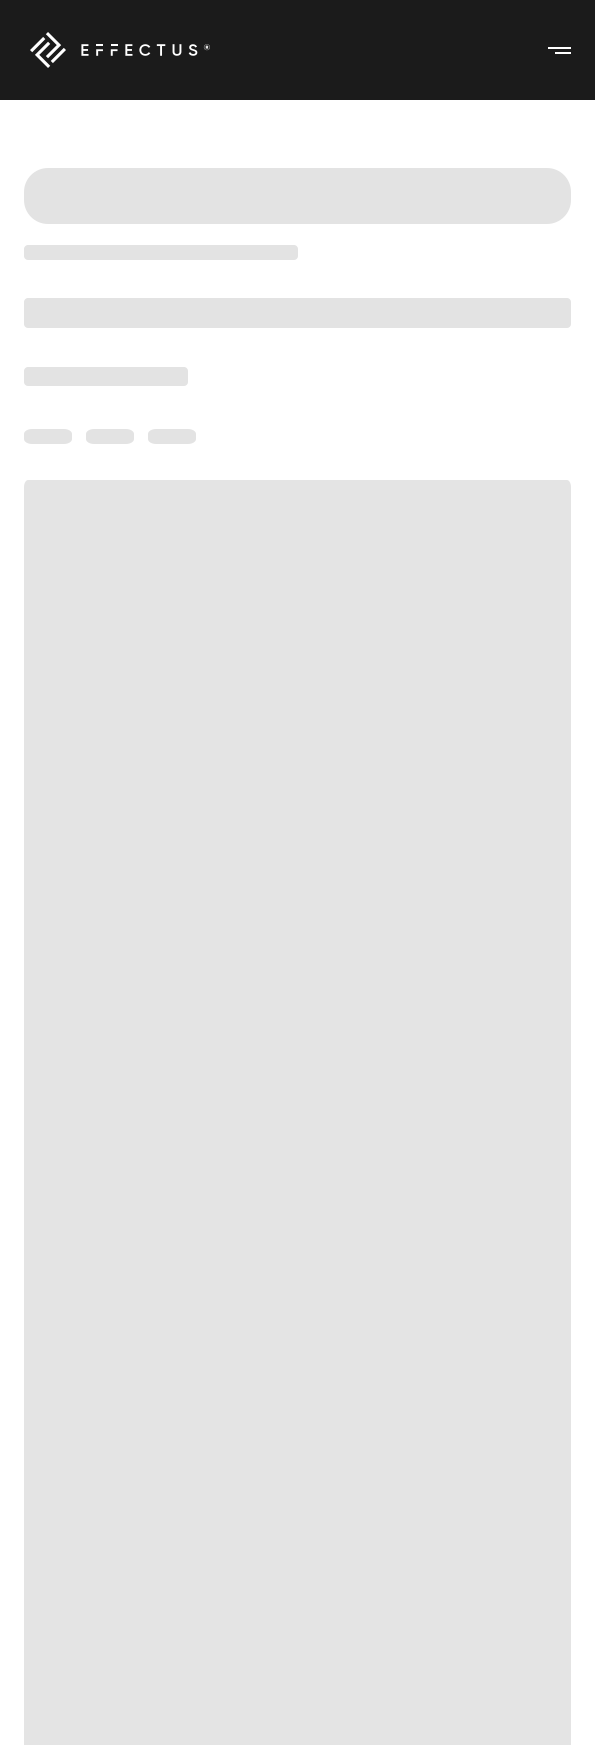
#include <cairo.h>
#include <math.h>
#include <stddef.h>


static void set_color(cairo_t *cr, unsigned color) {
    cairo_set_source_rgb(cr, (color >> 16) / 255.0, (color >> 8 & 255) / 255.0, (color & 255) / 255.0);
}

static void fill_rect(cairo_t *cr, double x, double y, double w, double h, unsigned color) {
    set_color(cr, color);
    cairo_rectangle(cr, x, y, w, h);
    cairo_fill(cr);
}

static void rounded_rect(cairo_t *cr, double x, double y, double w, double h, double r) {
    cairo_new_sub_path(cr);
    cairo_arc(cr, x + w - r, y + h - r, r, 0, M_PI / 2);
    cairo_arc(cr, x + r, y + h - r, r, M_PI / 2, M_PI);
    cairo_arc(cr, x + r, y + r, r, M_PI, 1.5 * M_PI);
    cairo_arc(cr, x + w - r, y + r, r, 1.5 * M_PI, 2 * M_PI);
    cairo_close_path(cr);
}

static void draw_image(cairo_t *cr, const char *path, double x, double y, double w, double h) {
    cairo_surface_t *image = cairo_image_surface_create_from_png(path);
    cairo_save(cr);
    cairo_set_source_surface(cr, image, x, y);
    cairo_rectangle(cr, x, y, w, h);
    cairo_fill(cr);
    cairo_restore(cr);
    cairo_surface_destroy(image);
}

int main(void) {
    cairo_surface_t *surface = cairo_image_surface_create(CAIRO_FORMAT_RGB24, 595, 1745);
    cairo_t *cr = cairo_create(surface);
    cairo_font_options_t *options = cairo_font_options_create();
    cairo_font_options_set_hint_metrics(options, CAIRO_HINT_METRICS_OFF);
    cairo_font_options_set_hint_style(options, CAIRO_HINT_STYLE_NONE);
    cairo_set_font_options(cr, options);
    cairo_set_miter_limit(cr, 4);
    set_color(cr, 0xFFFFFF);
    cairo_paint(cr);
    fill_rect(cr, 0, 0, 595, 100, 0x1B1B1B);
    draw_image(cr, "assets/img1.png", 30, 32, 180, 36);
    fill_rect(cr, 548, 47, 23, 2, 0xFFFFFF);
    fill_rect(cr, 555, 52, 16, 2, 0xFFFFFF);
    set_color(cr, 0xE3E3E3);
    rounded_rect(cr, 24, 168, 547, 56, 24);
    cairo_fill(cr);
    rounded_rect(cr, 24, 245, 274, 15, 4);
    cairo_fill(cr);
    rounded_rect(cr, 24, 298, 547, 30, 4);
    cairo_fill(cr);
    rounded_rect(cr, 24, 367, 164, 19, 4);
    cairo_fill(cr);
    cairo_new_path(cr);
    cairo_move_to(cr, 32, 429);
    cairo_line_to(cr, 64, 429);
    cairo_curve_to(cr, 68, 429, 72, 431, 72, 434);
    cairo_line_to(cr, 72, 439);
    cairo_curve_to(cr, 72, 442, 68, 444, 64, 444);
    cairo_line_to(cr, 32, 444);
    cairo_curve_to(cr, 28, 444, 24, 442, 24, 439);
    cairo_line_to(cr, 24, 434);
    cairo_curve_to(cr, 24, 431, 28, 429, 32, 429);
    cairo_close_path(cr);
    cairo_fill(cr);
    cairo_new_path(cr);
    cairo_move_to(cr, 94, 429);
    cairo_line_to(cr, 126, 429);
    cairo_curve_to(cr, 130, 429, 134, 431, 134, 434);
    cairo_line_to(cr, 134, 439);
    cairo_curve_to(cr, 134, 442, 130, 444, 126, 444);
    cairo_line_to(cr, 94, 444);
    cairo_curve_to(cr, 90, 444, 86, 442, 86, 439);
    cairo_line_to(cr, 86, 434);
    cairo_curve_to(cr, 86, 431, 90, 429, 94, 429);
    cairo_close_path(cr);
    cairo_fill(cr);
    cairo_new_path(cr);
    cairo_move_to(cr, 156, 429);
    cairo_line_to(cr, 188, 429);
    cairo_curve_to(cr, 192, 429, 196, 431, 196, 434);
    cairo_line_to(cr, 196, 439);
    cairo_curve_to(cr, 196, 442, 192, 444, 188, 444);
    cairo_line_to(cr, 156, 444);
    cairo_curve_to(cr, 152, 444, 148, 442, 148, 439);
    cairo_line_to(cr, 148, 434);
    cairo_curve_to(cr, 148, 431, 152, 429, 156, 429);
    cairo_close_path(cr);
    cairo_fill(cr);
    set_color(cr, 0xE4E4E4);
    cairo_new_path(cr);
    cairo_move_to(cr, 28, 480);
    cairo_line_to(cr, 567, 480);
    cairo_curve_to(cr, 569, 480, 571, 483, 571, 487);
    cairo_line_to(cr, 571, 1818);
    cairo_curve_to(cr, 571, 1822, 569, 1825, 567, 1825);
    cairo_line_to(cr, 28, 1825);
    cairo_curve_to(cr, 26, 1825, 24, 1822, 24, 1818);
    cairo_line_to(cr, 24, 487);
    cairo_curve_to(cr, 24, 483, 26, 480, 28, 480);
    cairo_close_path(cr);
    cairo_fill(cr);
    cairo_surface_write_to_png(surface, "output.png");
    cairo_font_options_destroy(options);
    cairo_destroy(cr);
    cairo_surface_destroy(surface);
    return 0;
}
